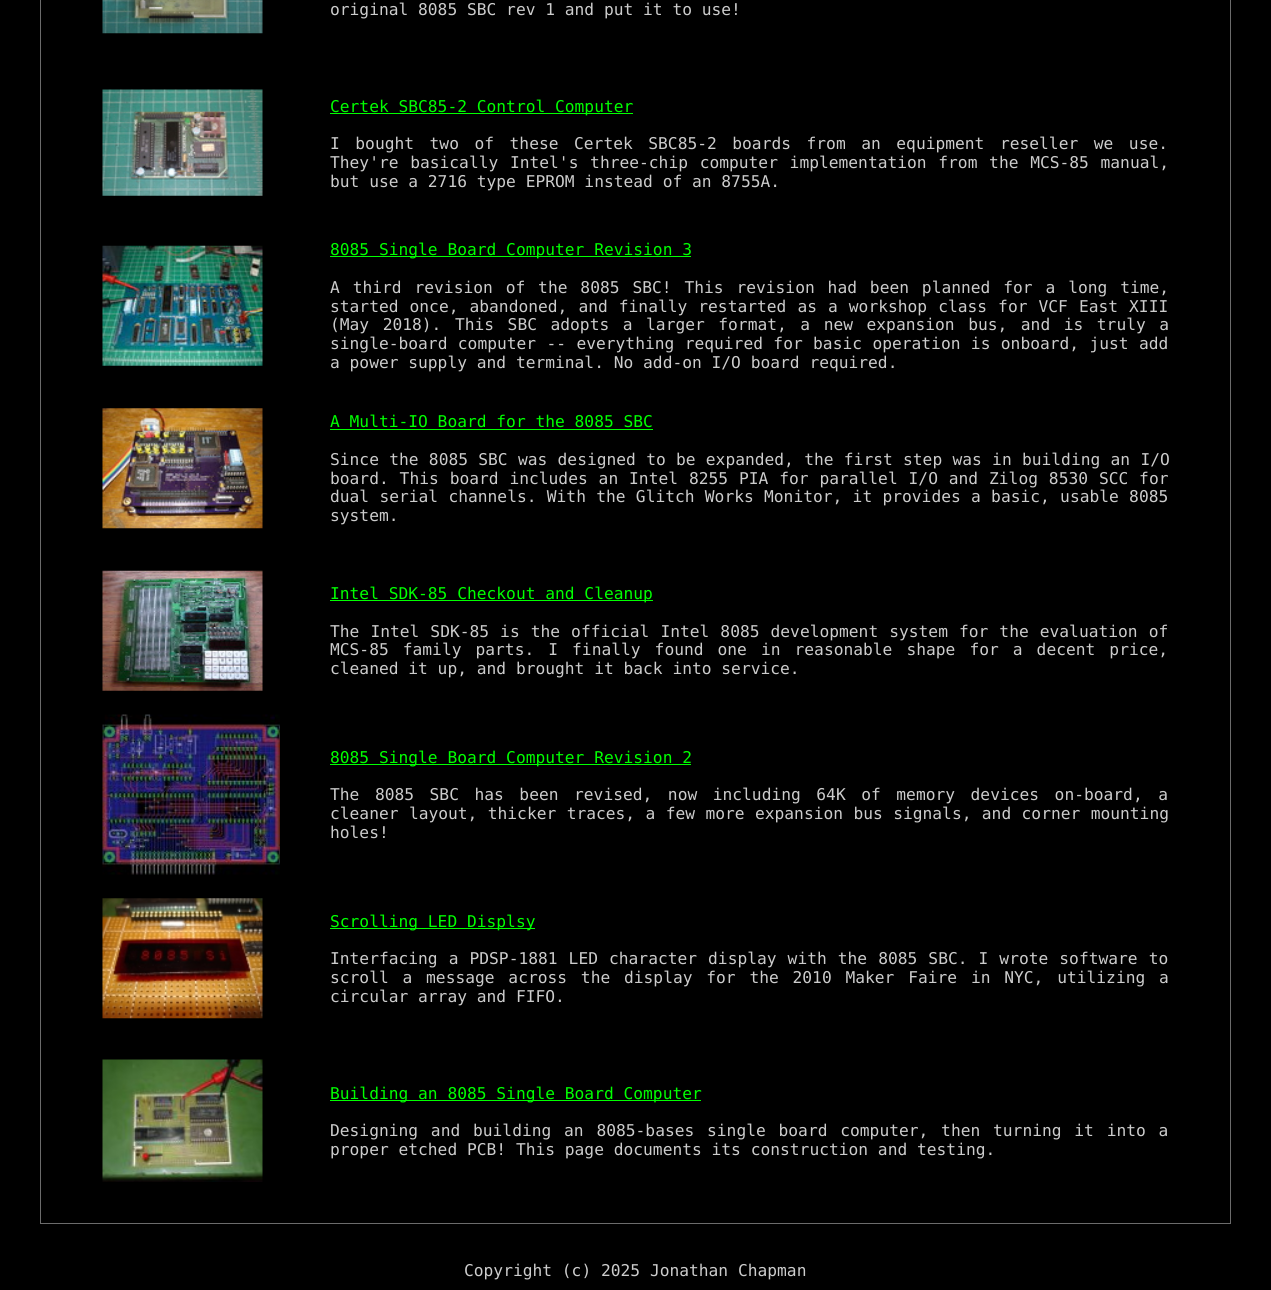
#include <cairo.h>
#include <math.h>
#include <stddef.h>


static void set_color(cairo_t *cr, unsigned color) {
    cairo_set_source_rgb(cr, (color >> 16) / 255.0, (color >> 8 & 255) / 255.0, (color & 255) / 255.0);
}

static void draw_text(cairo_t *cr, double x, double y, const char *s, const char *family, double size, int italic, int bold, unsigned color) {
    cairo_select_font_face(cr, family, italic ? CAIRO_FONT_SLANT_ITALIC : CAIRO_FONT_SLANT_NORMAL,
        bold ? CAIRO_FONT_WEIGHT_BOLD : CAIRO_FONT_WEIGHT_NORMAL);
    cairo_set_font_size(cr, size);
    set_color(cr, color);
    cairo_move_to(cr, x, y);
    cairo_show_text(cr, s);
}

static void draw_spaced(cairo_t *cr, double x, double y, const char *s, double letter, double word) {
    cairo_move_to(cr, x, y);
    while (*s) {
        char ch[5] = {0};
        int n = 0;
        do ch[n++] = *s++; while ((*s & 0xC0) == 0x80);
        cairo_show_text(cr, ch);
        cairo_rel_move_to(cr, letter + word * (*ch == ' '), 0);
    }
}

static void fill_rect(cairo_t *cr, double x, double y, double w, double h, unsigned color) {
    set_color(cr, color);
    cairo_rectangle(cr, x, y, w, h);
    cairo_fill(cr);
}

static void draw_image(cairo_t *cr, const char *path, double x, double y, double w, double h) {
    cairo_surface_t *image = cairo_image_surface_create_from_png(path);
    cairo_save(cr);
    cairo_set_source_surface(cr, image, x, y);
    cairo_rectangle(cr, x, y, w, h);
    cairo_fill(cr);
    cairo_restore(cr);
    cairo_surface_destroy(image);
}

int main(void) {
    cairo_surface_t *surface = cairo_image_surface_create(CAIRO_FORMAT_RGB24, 1271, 1290);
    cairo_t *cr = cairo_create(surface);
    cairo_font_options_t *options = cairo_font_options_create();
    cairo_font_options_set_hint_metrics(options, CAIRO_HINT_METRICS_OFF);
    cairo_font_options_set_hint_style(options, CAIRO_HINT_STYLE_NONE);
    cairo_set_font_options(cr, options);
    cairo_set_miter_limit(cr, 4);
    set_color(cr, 0x000000);
    cairo_paint(cr);
    cairo_rectangle(cr, 40.5, -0.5, 1190, 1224);
    set_color(cr, 0x6B6B6B);
    cairo_set_line_width(cr, 1);
    cairo_stroke(cr);
    draw_image(cr, "assets/img1.png", 102, 0, 161, 34);
    draw_text(cr, 330, 15, "original 8085 SBC rev 1 and put it to use!", "DejaVu Sans Mono", 16.25, 0, 0, 0xCCCCCC);
    draw_image(cr, "assets/img2.png", 102, 89, 161, 107);
    fill_rect(cr, 330, 113, 303, 1, 0x00FF00);
    draw_text(cr, 330, 112, "Certek SBC85-2 Control Computer", "DejaVu Sans Mono", 16.25, 0, 0, 0x00FF00);
    set_color(cr, 0xCCCCCC);
    draw_spaced(cr, 330, 149, "I bought two of these Certek SBC85-2 boards from an equipment reseller we use.", 0, 5.75);
    draw_spaced(cr, 330, 168, "They're basically Intel's three-chip computer implementation from the MCS-85 manual,", 0, 1.9);
    draw_text(cr, 330, 187, "but use a 2716 type EPROM instead of an 8755A.", "DejaVu Sans Mono", 16.25, 0, 0, 0xCCCCCC);
    draw_image(cr, "assets/img3.png", 102, 245, 161, 121);
    fill_rect(cr, 330, 256, 361, 1, 0x00FF00);
    draw_text(cr, 330, 255, "8085 Single Board Computer Revision 3", "DejaVu Sans Mono", 16.25, 0, 0, 0x00FF00);
    set_color(cr, 0xCCCCCC);
    draw_spaced(cr, 330, 293, "A third revision of the 8085 SBC! This revision had been planned for a long time,", 0, 3.1);
    draw_spaced(cr, 330, 312, "started once, abandoned, and finally restarted as a workshop class for VCF East XIII", 0, 1.25);
    draw_spaced(cr, 330, 330, "(May 2018). This SBC adopts a larger format, a new expansion bus, and is truly a", 0, 3.75);
    draw_spaced(cr, 330, 349, "single-board computer -- everything required for basic operation is onboard, just add", 0, 0.6);
    draw_text(cr, 330, 368, "a power supply and terminal. No add-on I/O board required.", "DejaVu Sans Mono", 16.25, 0, 0, 0xCCCCCC);
    draw_image(cr, "assets/img4.png", 102, 408, 161, 121);
    draw_text(cr, 330, 427, "A Multi-IO Board for the 8085 SBC", "DejaVu Sans Mono", 16.25, 0, 0, 0x00FF00);
    fill_rect(cr, 330, 429, 323, 1, 0x00FF00);
    set_color(cr, 0xCCCCCC);
    draw_spaced(cr, 330, 465, "Since the 8085 SBC was designed to be expanded, the first step was in building an I/O", 0, 0.5);
    draw_spaced(cr, 330, 484, "board. This board includes an Intel 8255 PIA for parallel I/O and Zilog 8530 SCC for", 0, 1.1);
    draw_spaced(cr, 330, 502, "dual serial channels. With the Glitch Works Monitor, it provides a basic, usable 8085", 0, 0.5);
    draw_text(cr, 330, 521, "system.", "DejaVu Sans Mono", 16.25, 0, 0, 0xCCCCCC);
    draw_image(cr, "assets/img5.png", 102, 570, 161, 121);
    fill_rect(cr, 330, 600, 323, 1, 0x00FF00);
    draw_text(cr, 330, 599, "Intel SDK-85 Checkout and Cleanup", "DejaVu Sans Mono", 16.25, 0, 0, 0x00FF00);
    set_color(cr, 0xCCCCCC);
    draw_spaced(cr, 330, 637, "The Intel SDK-85 is the official Intel 8085 development system for the evaluation of", 0, 1.25);
    draw_spaced(cr, 330, 655, "MCS-85 family parts. I finally found one in reasonable shape for a decent price,", 0, 4.25);
    draw_text(cr, 330, 674, "cleaned it up, and brought it back into service.", "DejaVu Sans Mono", 16.25, 0, 0, 0xCCCCCC);
    draw_image(cr, "assets/img6.png", 102, 714, 178, 161);
    fill_rect(cr, 330, 764, 361, 1, 0x00FF00);
    draw_text(cr, 330, 763, "8085 Single Board Computer Revision 2", "DejaVu Sans Mono", 16.25, 0, 0, 0x00FF00);
    set_color(cr, 0xCCCCCC);
    draw_spaced(cr, 330, 800, "The 8085 SBC has been revised, now including 64K of memory devices on-board, a", 0, 5.75);
    draw_spaced(cr, 330, 819, "cleaner layout, thicker traces, a few more expansion bus signals, and corner mounting", 0, 0.6);
    draw_text(cr, 330, 838, "holes!", "DejaVu Sans Mono", 16.25, 0, 0, 0xCCCCCC);
    draw_image(cr, "assets/img7.png", 102, 898, 161, 121);
    fill_rect(cr, 330, 928, 205, 1, 0x00FF00);
    draw_text(cr, 330, 927, "Scrolling LED Displsy", "DejaVu Sans Mono", 16.25, 0, 0, 0x00FF00);
    set_color(cr, 0xCCCCCC);
    draw_spaced(cr, 330, 964, "Interfacing a PDSP-1881 LED character display with the 8085 SBC. I wrote software to", 0, 1.25);
    draw_spaced(cr, 330, 983, "scroll a message across the display for the 2010 Maker Faire in NYC, utilizing a", 0, 4);
    draw_text(cr, 330, 1002, "circular array and FIFO.", "DejaVu Sans Mono", 16.25, 0, 0, 0xCCCCCC);
    draw_image(cr, "assets/img8.png", 102, 1059, 161, 123);
    fill_rect(cr, 330, 1100, 371, 1, 0x00FF00);
    draw_text(cr, 330, 1099, "Building an 8085 Single Board Computer", "DejaVu Sans Mono", 16.25, 0, 0, 0x00FF00);
    set_color(cr, 0xCCCCCC);
    draw_spaced(cr, 330, 1136, "Designing and building an 8085-bases single board computer, then turning it into a", 0, 3);
    draw_text(cr, 330, 1155, "proper etched PCB! This page documents its construction and testing.", "DejaVu Sans Mono", 16.25, 0, 0, 0xCCCCCC);
    draw_text(cr, 464, 1276, "Copyright (c) 2025 Jonathan Chapman", "DejaVu Sans Mono", 16.25, 0, 0, 0xCCCCCC);
    cairo_surface_write_to_png(surface, "output.png");
    cairo_font_options_destroy(options);
    cairo_destroy(cr);
    cairo_surface_destroy(surface);
    return 0;
}
